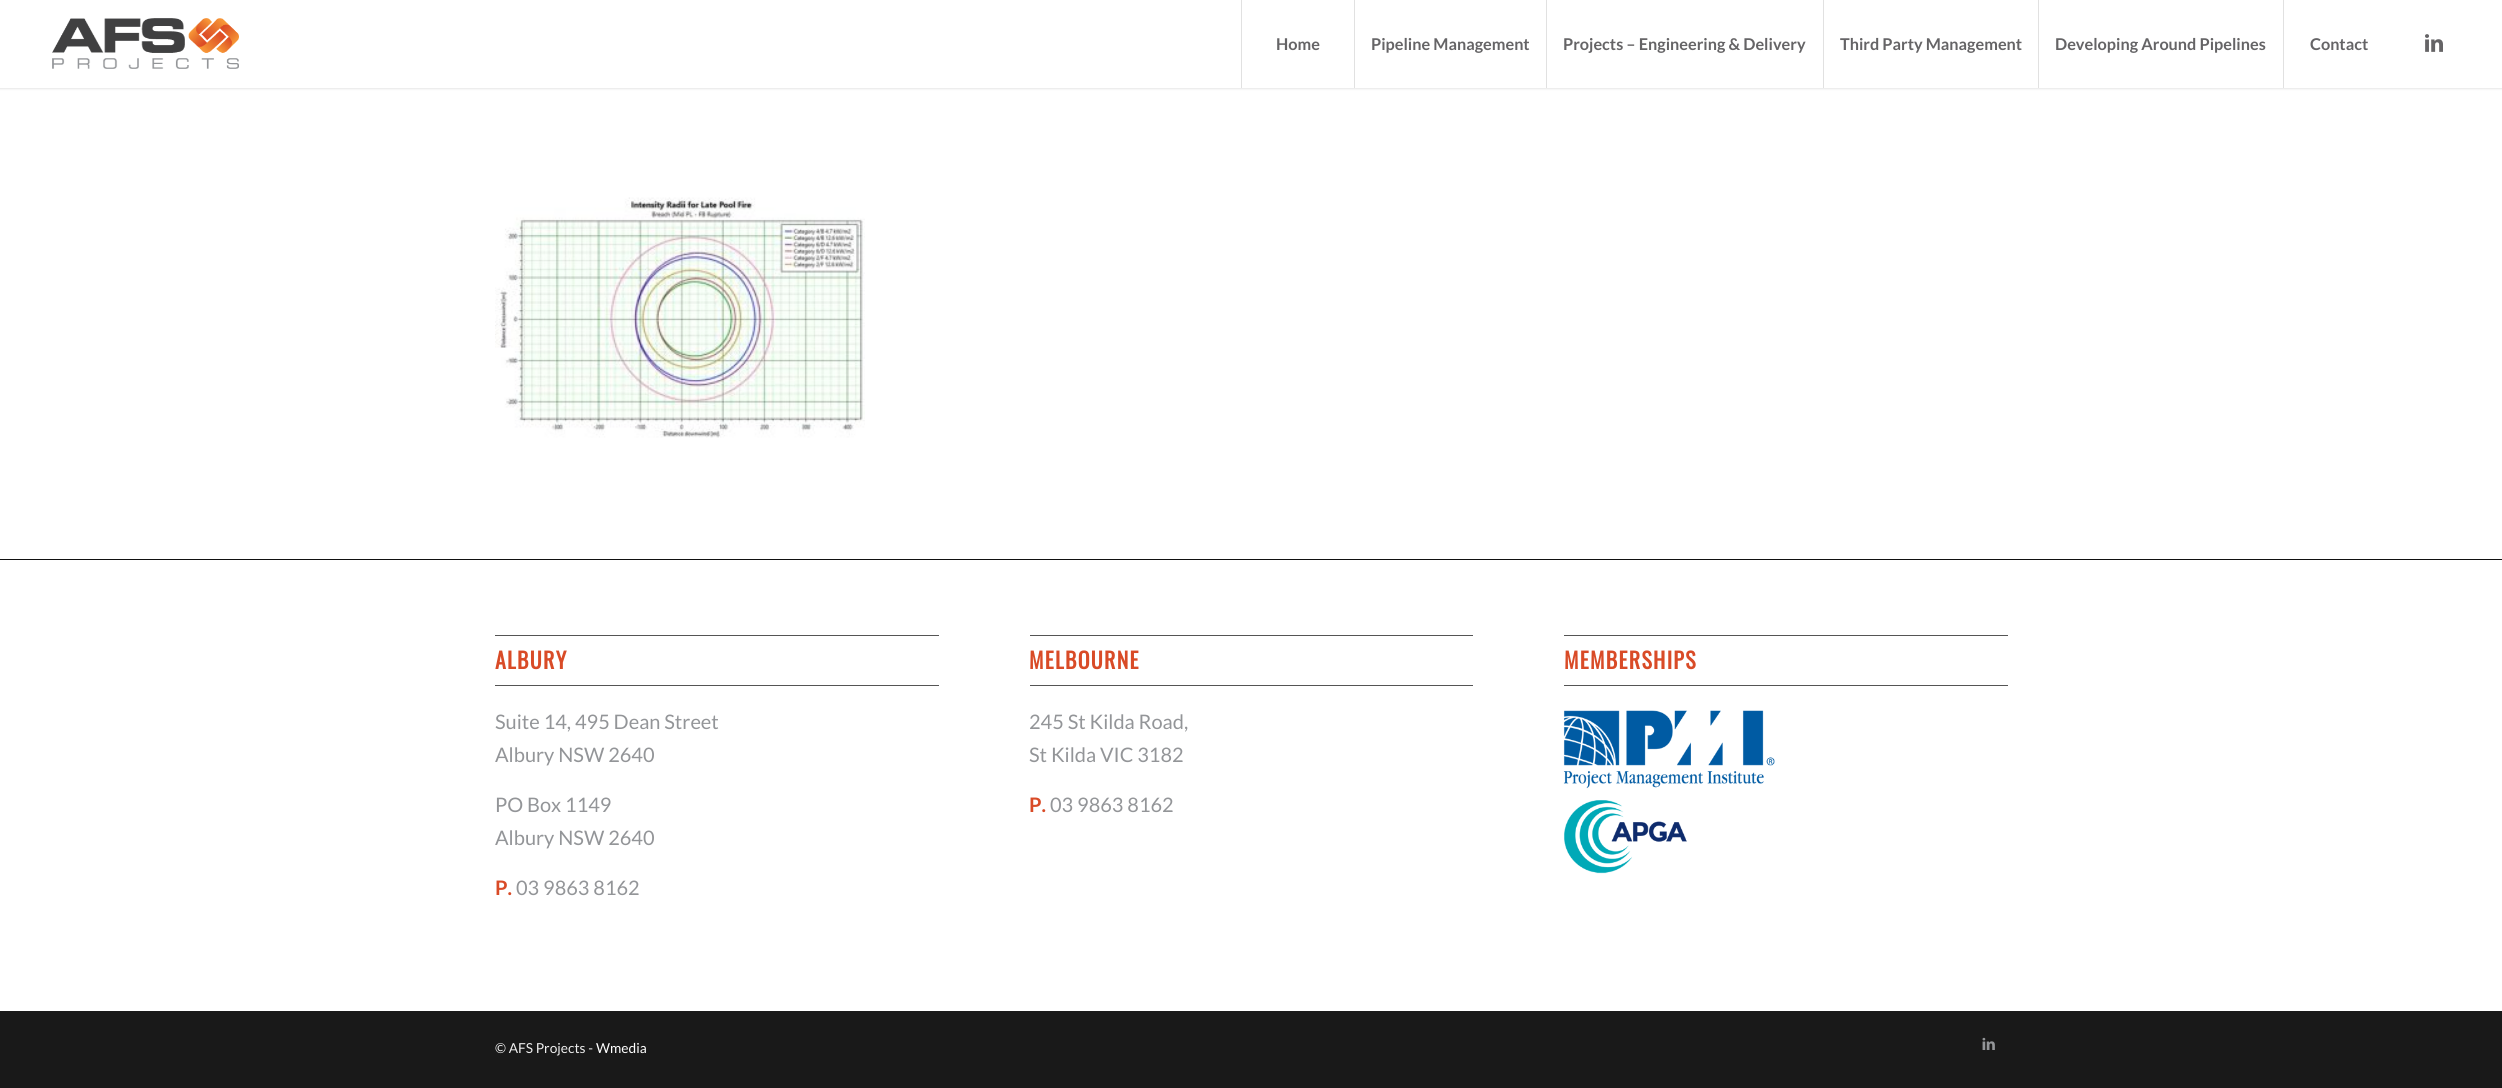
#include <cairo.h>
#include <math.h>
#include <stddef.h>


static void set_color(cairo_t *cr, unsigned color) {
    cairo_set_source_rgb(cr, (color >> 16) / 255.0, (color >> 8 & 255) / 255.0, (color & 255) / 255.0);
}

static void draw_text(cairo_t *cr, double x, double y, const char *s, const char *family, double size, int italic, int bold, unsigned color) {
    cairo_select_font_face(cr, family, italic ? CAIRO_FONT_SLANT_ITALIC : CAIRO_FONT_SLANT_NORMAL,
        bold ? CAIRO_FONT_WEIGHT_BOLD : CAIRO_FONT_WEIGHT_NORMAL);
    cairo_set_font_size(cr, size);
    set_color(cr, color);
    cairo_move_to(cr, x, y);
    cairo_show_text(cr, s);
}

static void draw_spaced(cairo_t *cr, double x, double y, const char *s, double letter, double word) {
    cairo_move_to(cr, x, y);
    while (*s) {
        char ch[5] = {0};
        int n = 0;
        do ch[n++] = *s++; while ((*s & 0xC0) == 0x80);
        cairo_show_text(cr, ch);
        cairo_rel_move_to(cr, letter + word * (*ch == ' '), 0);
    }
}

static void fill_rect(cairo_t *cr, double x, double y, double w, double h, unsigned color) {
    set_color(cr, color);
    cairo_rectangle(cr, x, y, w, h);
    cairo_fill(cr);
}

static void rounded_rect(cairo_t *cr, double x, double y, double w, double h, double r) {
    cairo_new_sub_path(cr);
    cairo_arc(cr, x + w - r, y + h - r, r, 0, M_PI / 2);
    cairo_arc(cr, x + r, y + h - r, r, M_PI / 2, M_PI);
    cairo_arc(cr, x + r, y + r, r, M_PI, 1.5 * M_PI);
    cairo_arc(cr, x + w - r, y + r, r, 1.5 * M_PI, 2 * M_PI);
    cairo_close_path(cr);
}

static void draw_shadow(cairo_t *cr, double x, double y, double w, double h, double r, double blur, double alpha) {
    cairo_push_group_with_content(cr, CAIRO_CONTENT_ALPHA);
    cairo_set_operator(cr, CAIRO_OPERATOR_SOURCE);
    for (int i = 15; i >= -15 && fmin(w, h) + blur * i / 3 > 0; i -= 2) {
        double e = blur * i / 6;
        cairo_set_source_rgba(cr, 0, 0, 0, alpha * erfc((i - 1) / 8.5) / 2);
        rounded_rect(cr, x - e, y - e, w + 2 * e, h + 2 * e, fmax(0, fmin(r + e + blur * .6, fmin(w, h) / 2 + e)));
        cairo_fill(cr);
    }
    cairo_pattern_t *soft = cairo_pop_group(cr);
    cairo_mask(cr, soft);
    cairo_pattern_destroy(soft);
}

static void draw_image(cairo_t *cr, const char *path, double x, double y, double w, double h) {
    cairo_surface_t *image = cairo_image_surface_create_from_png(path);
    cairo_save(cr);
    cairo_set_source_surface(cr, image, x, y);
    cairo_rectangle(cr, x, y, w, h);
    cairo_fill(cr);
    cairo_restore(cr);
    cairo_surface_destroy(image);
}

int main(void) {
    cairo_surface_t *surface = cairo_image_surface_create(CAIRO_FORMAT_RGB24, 2502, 1088);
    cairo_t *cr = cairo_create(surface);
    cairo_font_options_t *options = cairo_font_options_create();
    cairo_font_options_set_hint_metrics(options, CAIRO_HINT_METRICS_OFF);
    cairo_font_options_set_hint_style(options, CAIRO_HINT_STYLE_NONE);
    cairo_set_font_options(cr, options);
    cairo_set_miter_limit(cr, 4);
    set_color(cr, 0x191919);
    cairo_paint(cr);
    fill_rect(cr, 0, 88, 2502, 923, 0xFFFFFF);
    set_color(cr, 0x000000);
    draw_shadow(cr, -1, -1, 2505, 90, 0, 1, 0.1);
    fill_rect(cr, 0, 0, 2502, 88, 0xFFFFFF);
    draw_image(cr, "assets/img1.png", 52, 18, 187, 51);
    fill_rect(cr, 1241, 0, 1, 88, 0xE1E1E1);
    draw_text(cr, 1276, 50, "Home", "Lato", 16.25, 0, 1, 0x656466);
    fill_rect(cr, 1354, 0, 1, 88, 0xE1E1E1);
    draw_text(cr, 1371, 50, "Pipeline Management", "Lato", 16.25, 0, 1, 0x656466);
    fill_rect(cr, 1546, 0, 1, 88, 0xE1E1E1);
    draw_text(cr, 1563, 50, "Projects – Engineering & Delivery", "Lato", 16.25, 0, 1, 0x656466);
    fill_rect(cr, 1823, 0, 1, 88, 0xE1E1E1);
    draw_text(cr, 1840, 50, "Third Party Management", "Lato", 16.25, 0, 1, 0x656466);
    fill_rect(cr, 2038, 0, 1, 88, 0xE1E1E1);
    draw_text(cr, 2055, 50, "Developing Around Pipelines", "Lato", 16.25, 0, 1, 0x656466);
    fill_rect(cr, 2283, 0, 1, 88, 0xE1E1E1);
    draw_text(cr, 2310, 50, "Contact", "Lato", 16.25, 0, 1, 0x656466);
    draw_image(cr, "assets/img2.png", 2425, 34, 18, 18);
    draw_image(cr, "assets/img3.png", 495, 197, 370, 241);
    fill_rect(cr, 0, 559, 2502, 1, 0x111111);
    fill_rect(cr, 495, 635, 444, 1, 0x555555);
    fill_rect(cr, 495, 685, 444, 1, 0x555555);
    cairo_select_font_face(cr, "Oswald", CAIRO_FONT_SLANT_NORMAL, CAIRO_FONT_WEIGHT_BOLD);
    cairo_set_font_size(cr, 22);
    set_color(cr, 0xD94B27);
    draw_spaced(cr, 495, 669, "ALBURY", 1.25, 0);
    draw_text(cr, 495, 729, "Suite 14, 495 Dean Street", "Lato", 20, 0, 0, 0x939598);
    draw_text(cr, 495, 762, "Albury NSW 2640", "Lato", 20, 0, 0, 0x939598);
    draw_text(cr, 495, 812, "PO Box 1149", "Lato", 20, 0, 0, 0x939598);
    draw_text(cr, 495, 845, "Albury NSW 2640", "Lato", 20, 0, 0, 0x939598);
    draw_text(cr, 495, 895, "P.", "Lato", 20, 0, 1, 0xD94B27);
    draw_text(cr, 516, 895, "03 9863 8162", "Lato", 20, 0, 0, 0x939598);
    fill_rect(cr, 1030, 635, 443, 1, 0x555555);
    fill_rect(cr, 1030, 685, 443, 1, 0x555555);
    cairo_select_font_face(cr, "Oswald", CAIRO_FONT_SLANT_NORMAL, CAIRO_FONT_WEIGHT_BOLD);
    cairo_set_font_size(cr, 22);
    set_color(cr, 0xD94B27);
    draw_spaced(cr, 1029, 669, "MELBOURNE", 1.25, 0);
    draw_text(cr, 1029, 729, "245 St Kilda Road,", "Lato", 20, 0, 0, 0x939598);
    draw_text(cr, 1029, 762, "St Kilda VIC 3182", "Lato", 20, 0, 0, 0x939598);
    draw_text(cr, 1029, 812, "P.", "Lato", 20, 0, 1, 0xD94B27);
    draw_text(cr, 1050, 812, "03 9863 8162", "Lato", 20, 0, 0, 0x939598);
    fill_rect(cr, 1564, 635, 444, 1, 0x555555);
    fill_rect(cr, 1564, 685, 444, 1, 0x555555);
    cairo_select_font_face(cr, "Oswald", CAIRO_FONT_SLANT_NORMAL, CAIRO_FONT_WEIGHT_BOLD);
    cairo_set_font_size(cr, 22);
    set_color(cr, 0xD94B27);
    draw_spaced(cr, 1564, 669, "MEMBERSHIPS", 1.25, 0);
    draw_image(cr, "assets/img4.png", 1563, 710, 212, 164);
    draw_text(cr, 495, 1053, "© AFS Projects -", "Lato", 13.75, 0, 0, 0xEEEEEE);
    draw_text(cr, 596, 1053, "Wmedia", "Lato", 13.75, 0, 0, 0xFFFFFF);
    draw_image(cr, "assets/img5.png", 1982, 1037, 13, 13);
    cairo_surface_write_to_png(surface, "output.png");
    cairo_font_options_destroy(options);
    cairo_destroy(cr);
    cairo_surface_destroy(surface);
    return 0;
}
